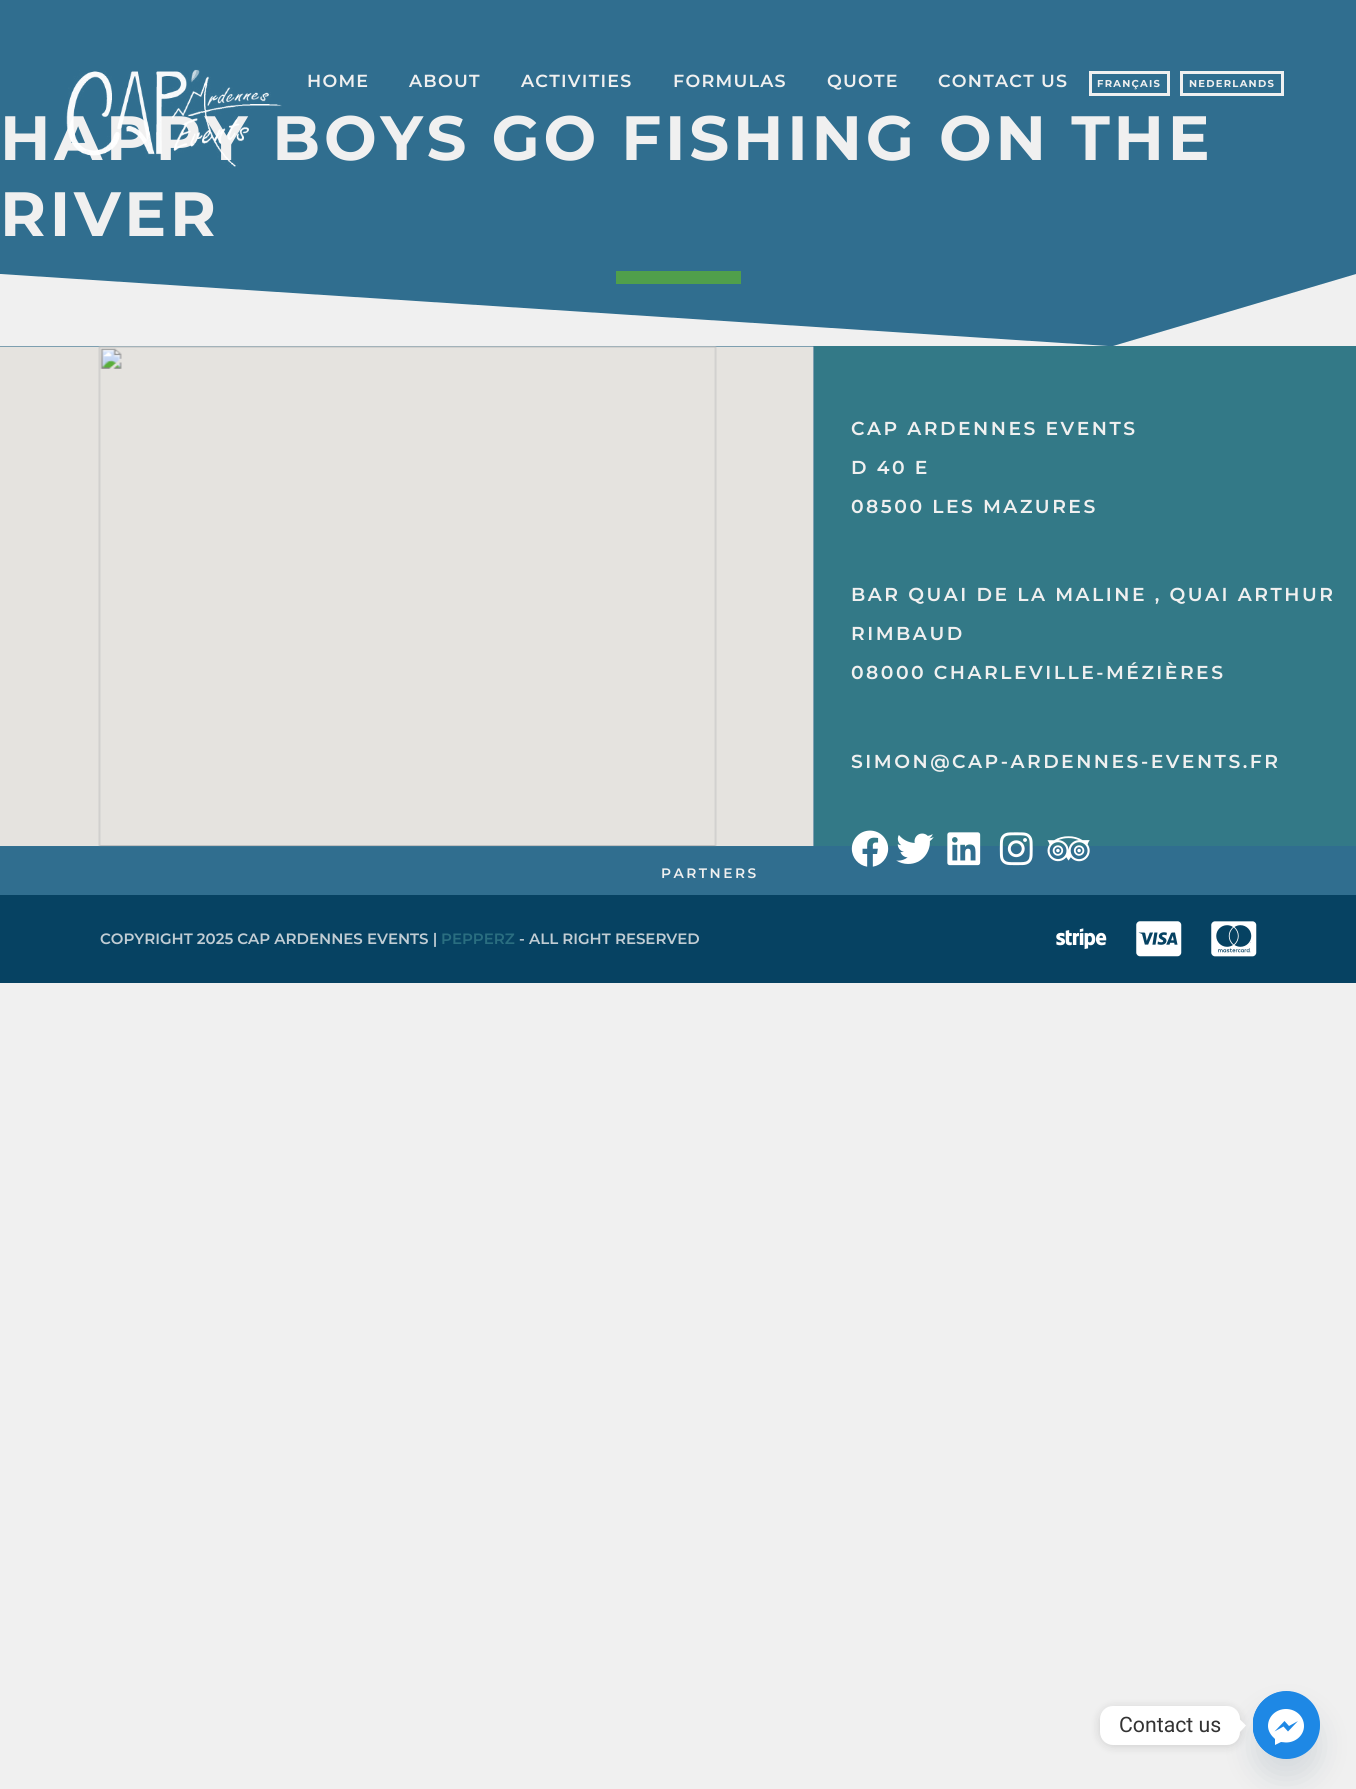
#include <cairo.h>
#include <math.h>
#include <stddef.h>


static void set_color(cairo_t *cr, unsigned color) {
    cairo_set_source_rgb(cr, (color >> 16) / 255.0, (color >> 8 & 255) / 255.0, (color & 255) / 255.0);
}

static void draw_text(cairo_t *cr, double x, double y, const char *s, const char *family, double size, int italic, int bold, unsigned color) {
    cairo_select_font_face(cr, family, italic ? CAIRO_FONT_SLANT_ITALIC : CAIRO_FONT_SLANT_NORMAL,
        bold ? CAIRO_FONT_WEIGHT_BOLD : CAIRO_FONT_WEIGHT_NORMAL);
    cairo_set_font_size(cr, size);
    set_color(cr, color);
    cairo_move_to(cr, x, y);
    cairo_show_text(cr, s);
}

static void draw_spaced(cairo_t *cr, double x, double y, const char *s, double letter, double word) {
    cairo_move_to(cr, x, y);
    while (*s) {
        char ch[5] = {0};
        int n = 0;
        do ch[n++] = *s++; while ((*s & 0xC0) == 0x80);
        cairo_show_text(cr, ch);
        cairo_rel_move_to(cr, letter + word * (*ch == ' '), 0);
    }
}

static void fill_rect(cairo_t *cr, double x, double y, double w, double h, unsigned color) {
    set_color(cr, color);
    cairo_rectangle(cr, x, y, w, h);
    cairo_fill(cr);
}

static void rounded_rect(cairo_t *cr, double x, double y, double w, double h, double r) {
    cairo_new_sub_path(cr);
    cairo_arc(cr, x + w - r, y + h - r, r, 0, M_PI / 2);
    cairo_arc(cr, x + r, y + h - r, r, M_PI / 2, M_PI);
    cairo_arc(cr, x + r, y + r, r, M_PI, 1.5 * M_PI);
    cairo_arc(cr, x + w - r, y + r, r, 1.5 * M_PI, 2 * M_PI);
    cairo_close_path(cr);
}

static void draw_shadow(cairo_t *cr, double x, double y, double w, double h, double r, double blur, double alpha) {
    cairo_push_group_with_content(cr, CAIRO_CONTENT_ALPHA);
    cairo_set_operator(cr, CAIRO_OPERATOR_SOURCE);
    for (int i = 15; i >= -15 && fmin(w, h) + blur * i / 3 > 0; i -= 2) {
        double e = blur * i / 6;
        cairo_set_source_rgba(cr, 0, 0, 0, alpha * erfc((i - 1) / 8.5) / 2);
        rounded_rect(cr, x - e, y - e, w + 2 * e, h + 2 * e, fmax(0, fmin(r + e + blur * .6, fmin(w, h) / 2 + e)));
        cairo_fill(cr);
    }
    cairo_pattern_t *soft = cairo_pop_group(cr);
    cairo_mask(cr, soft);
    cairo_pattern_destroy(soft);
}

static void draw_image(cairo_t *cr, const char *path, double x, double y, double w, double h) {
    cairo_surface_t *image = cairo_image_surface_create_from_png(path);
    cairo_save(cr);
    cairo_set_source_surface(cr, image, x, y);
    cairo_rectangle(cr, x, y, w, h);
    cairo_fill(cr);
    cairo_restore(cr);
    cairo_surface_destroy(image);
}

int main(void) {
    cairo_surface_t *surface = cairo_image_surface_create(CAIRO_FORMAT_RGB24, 1356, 1789);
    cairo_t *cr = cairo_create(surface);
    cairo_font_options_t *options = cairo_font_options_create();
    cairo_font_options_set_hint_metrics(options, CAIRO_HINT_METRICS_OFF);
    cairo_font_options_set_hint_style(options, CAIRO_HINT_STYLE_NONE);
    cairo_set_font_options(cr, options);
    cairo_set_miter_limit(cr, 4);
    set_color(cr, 0xF0F0F0);
    cairo_paint(cr);
    set_color(cr, 0x306E8F);
    cairo_new_path(cr);
    cairo_move_to(cr, 0, 0);
    cairo_line_to(cr, 0, 274);
    cairo_line_to(cr, 1108, 346);
    cairo_line_to(cr, 1113, 346);
    cairo_line_to(cr, 1356, 274);
    cairo_line_to(cr, 1356, 0);
    cairo_close_path(cr);
    cairo_fill(cr);
    cairo_select_font_face(cr, "Montserrat", CAIRO_FONT_SLANT_NORMAL, CAIRO_FONT_WEIGHT_BOLD);
    cairo_set_font_size(cr, 62.5);
    set_color(cr, 0xF0F0F0);
    draw_spaced(cr, 0, 160, "HAPPY BOYS GO FISHING ON THE", 3.75, 0);
    draw_image(cr, "assets/img1.png", 66, 69, 216, 99);
    cairo_select_font_face(cr, "Montserrat SemiBold", CAIRO_FONT_SLANT_NORMAL, CAIRO_FONT_WEIGHT_NORMAL);
    cairo_set_font_size(cr, 17.5);
    draw_spaced(cr, 307, 87, "HOME", 1.25, 0);
    draw_spaced(cr, 409, 87, "ABOUT", 1.25, 0);
    draw_spaced(cr, 521, 87, "ACTIVITIES", 1.25, 0);
    draw_spaced(cr, 673, 87, "FORMULAS", 1.25, 0);
    draw_spaced(cr, 827, 87, "QUOTE", 1.25, 0);
    draw_spaced(cr, 938, 87, "CONTACT US", 1.25, 0);
    cairo_rectangle(cr, 1090.5, 72.5, 78, 22);
    cairo_set_line_width(cr, 3);
    cairo_stroke(cr);
    cairo_select_font_face(cr, "Montserrat", CAIRO_FONT_SLANT_NORMAL, CAIRO_FONT_WEIGHT_BOLD);
    cairo_set_font_size(cr, 10);
    draw_spaced(cr, 1097, 87, "FRANÇAIS", 1.25, 0);
    cairo_rectangle(cr, 1181.5, 72.5, 101, 22);
    cairo_stroke(cr);
    draw_spaced(cr, 1189, 87, "NEDERLANDS", 1.25, 0);
    cairo_set_font_size(cr, 62.5);
    draw_spaced(cr, 0, 236, "RIVER", 3.75, 0);
    fill_rect(cr, 616, 271, 125, 13, 0x509F4B);
    fill_rect(cr, 0, 346, 1356, 549, 0x306E8F);
    draw_image(cr, "assets/img2.png", 0, 346, 814, 501);
    fill_rect(cr, 814, 346, 542, 500, 0x337987);
    cairo_select_font_face(cr, "Montserrat SemiBold", CAIRO_FONT_SLANT_NORMAL, CAIRO_FONT_WEIGHT_NORMAL);
    cairo_set_font_size(cr, 18.75);
    set_color(cr, 0xF0F0F0);
    draw_spaced(cr, 851, 435, "CAP ARDENNES EVENTS", 2.5, 0);
    draw_spaced(cr, 851, 474, "D 40 E", 2.5, 0);
    draw_spaced(cr, 851, 513, "08500 LES MAZURES", 2.5, 0);
    draw_spaced(cr, 851, 601, "BAR QUAI DE LA MALINE , QUAI ARTHUR", 2.5, 0);
    draw_spaced(cr, 851, 640, "RIMBAUD", 2.5, 0);
    draw_spaced(cr, 851, 679, "08000 CHARLEVILLE-MÉZIÈRES", 2.5, 0);
    draw_spaced(cr, 851, 768, "SIMON@CAP-ARDENNES-EVENTS.FR", 2.5, 0);
    draw_image(cr, "assets/img3.png", 851, 830, 38, 37);
    draw_image(cr, "assets/img4.png", 896, 833, 38, 31);
    draw_image(cr, "assets/img5.png", 947, 832, 34, 34);
    draw_image(cr, "assets/img6.png", 999, 832, 34, 34);
    draw_image(cr, "assets/img7.png", 1047, 836, 43, 26);
    cairo_set_font_size(cr, 13.75);
    draw_spaced(cr, 661, 878, "PARTNERS", 2.5, 0);
    fill_rect(cr, 0, 895, 1356, 88, 0x064262);
    draw_text(cr, 100, 944, "COPYRIGHT 2025 CAP ARDENNES EVENTS |", "Montserrat SemiBold", 15, 0, 0, 0xC1CDD4);
    draw_text(cr, 441, 944, "PEPPERZ", "Montserrat SemiBold", 15, 0, 0, 0x2A6E80);
    draw_text(cr, 519, 944, "- ALL RIGHT RESERVED", "Montserrat SemiBold", 15, 0, 0, 0xC1CDD4);
    draw_image(cr, "assets/img8.png", 1056, 928, 51, 21);
    draw_image(cr, "assets/img9.png", 1136, 921, 46, 36);
    draw_image(cr, "assets/img10.png", 1211, 921, 46, 36);
    set_color(cr, 0x49687E);
    draw_shadow(cr, 1253, 1711, 67, 68, 33.5, 15, 0.16);
    set_color(cr, 0x1E88E5);
    rounded_rect(cr, 1253, 1691, 67, 68, 33.5);
    cairo_fill(cr);
    cairo_save(cr);
    cairo_rectangle(cr, 1253, 1691, 67, 68);
    cairo_clip(cr);
    cairo_arc(cr, 1286, 1725, 33.5, 0, 2 * M_PI);
    cairo_fill(cr);
    cairo_restore(cr);
    set_color(cr, 0x000000);
    draw_shadow(cr, 1100, 1708, 140, 38, 13, 5, 0.15);
    set_color(cr, 0xFFFFFF);
    rounded_rect(cr, 1100, 1706, 140, 39, 13);
    cairo_fill(cr);
    draw_text(cr, 1119, 1732, "Contact us", "Roboto", 21.25, 0, 0, 0x333333);
    set_color(cr, 0xFFFFFF);
    cairo_new_path(cr);
    cairo_move_to(cr, 1240, 1732);
    cairo_line_to(cr, 1240, 1719.5);
    cairo_line_to(cr, 1246, 1725.5);
    cairo_close_path(cr);
    cairo_fill(cr);
    cairo_set_fill_rule(cr, CAIRO_FILL_RULE_EVEN_ODD);
    cairo_new_path(cr);
    cairo_move_to(cr, 1268, 1726);
    cairo_curve_to(cr, 1268, 1716.5, 1276, 1709, 1286, 1709);
    cairo_curve_to(cr, 1296, 1709, 1304, 1716.5, 1304, 1726);
    cairo_curve_to(cr, 1304, 1735, 1296, 1742.5, 1286, 1742.5);
    cairo_curve_to(cr, 1284.5, 1742.5, 1282.5, 1742, 1281, 1742);
    cairo_line_to(cr, 1275, 1745);
    cairo_line_to(cr, 1275, 1739);
    cairo_curve_to(cr, 1271, 1735.5, 1268, 1731, 1268, 1726);
    cairo_close_path(cr);
    cairo_move_to(cr, 1283.5, 1726.5);
    cairo_line_to(cr, 1288, 1731.5);
    cairo_line_to(cr, 1298, 1721);
    cairo_line_to(cr, 1289, 1726);
    cairo_line_to(cr, 1284.5, 1721);
    cairo_line_to(cr, 1274.5, 1731.5);
    cairo_close_path(cr);
    cairo_fill(cr);
    cairo_surface_write_to_png(surface, "output.png");
    cairo_font_options_destroy(options);
    cairo_destroy(cr);
    cairo_surface_destroy(surface);
    return 0;
}
